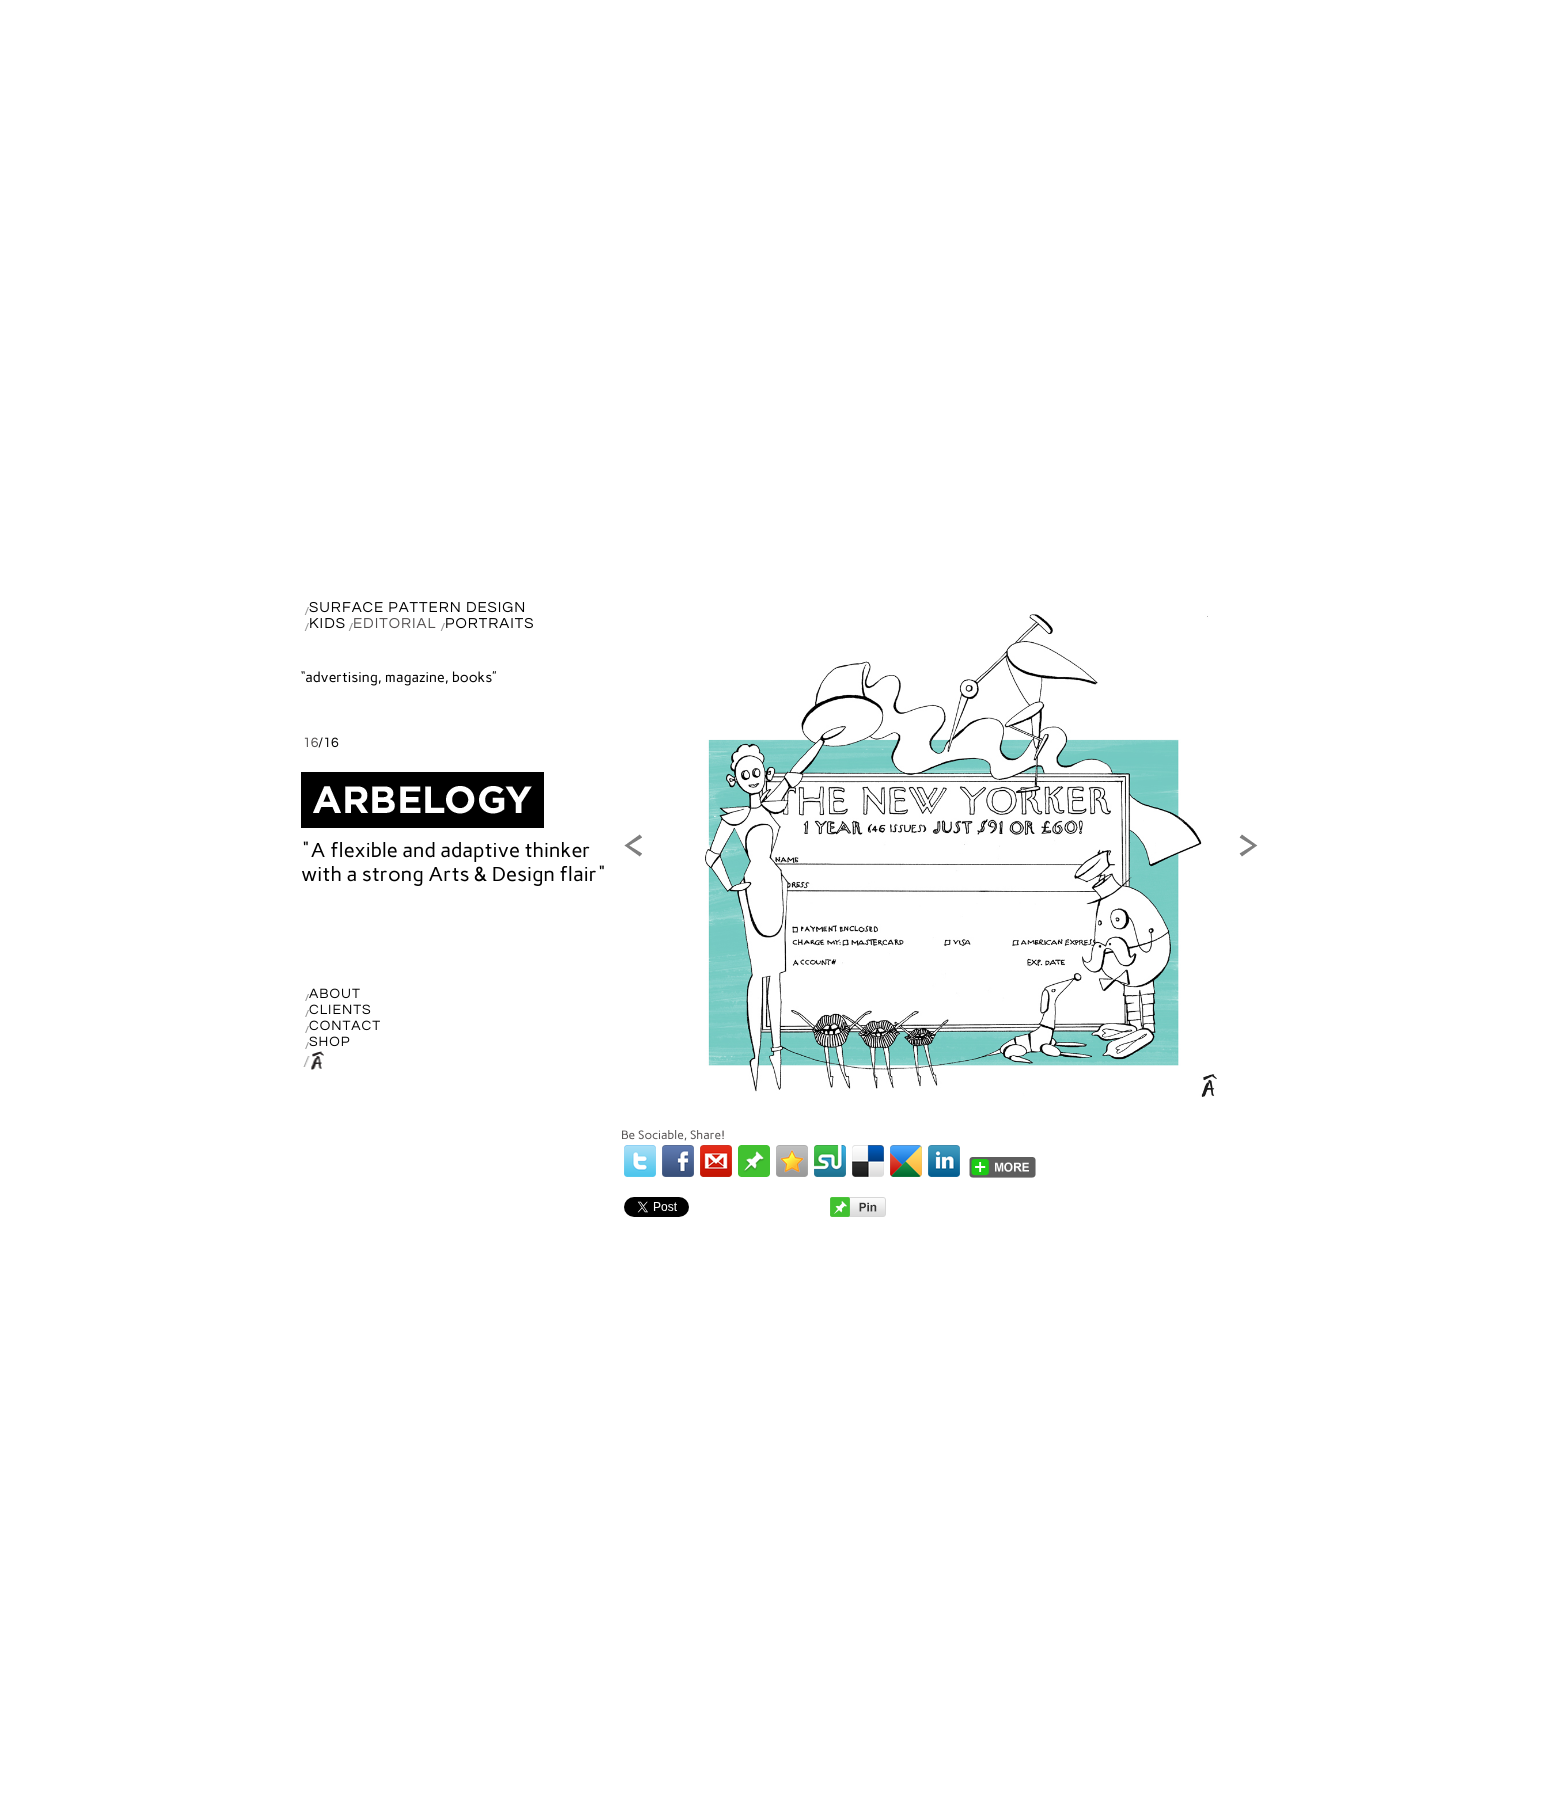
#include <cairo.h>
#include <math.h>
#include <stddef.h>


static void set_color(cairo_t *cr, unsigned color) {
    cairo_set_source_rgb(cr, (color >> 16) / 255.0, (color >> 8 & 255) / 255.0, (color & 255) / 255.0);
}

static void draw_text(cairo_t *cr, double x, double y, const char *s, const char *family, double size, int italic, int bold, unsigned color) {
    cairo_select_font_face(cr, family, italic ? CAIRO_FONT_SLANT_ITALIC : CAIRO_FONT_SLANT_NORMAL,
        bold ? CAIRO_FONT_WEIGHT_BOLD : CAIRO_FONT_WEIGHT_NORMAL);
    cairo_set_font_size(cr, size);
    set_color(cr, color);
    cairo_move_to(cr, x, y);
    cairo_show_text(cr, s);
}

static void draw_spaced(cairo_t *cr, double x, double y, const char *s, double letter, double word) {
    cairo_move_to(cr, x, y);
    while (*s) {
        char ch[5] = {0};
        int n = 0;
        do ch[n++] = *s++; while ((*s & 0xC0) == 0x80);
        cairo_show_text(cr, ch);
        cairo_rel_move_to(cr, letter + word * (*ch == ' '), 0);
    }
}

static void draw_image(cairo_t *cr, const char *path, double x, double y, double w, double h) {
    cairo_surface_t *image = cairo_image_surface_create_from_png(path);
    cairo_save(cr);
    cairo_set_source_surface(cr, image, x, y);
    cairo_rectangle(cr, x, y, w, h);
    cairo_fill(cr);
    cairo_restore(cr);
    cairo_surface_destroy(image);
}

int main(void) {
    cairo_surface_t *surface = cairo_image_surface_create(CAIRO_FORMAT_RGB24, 1561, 1799);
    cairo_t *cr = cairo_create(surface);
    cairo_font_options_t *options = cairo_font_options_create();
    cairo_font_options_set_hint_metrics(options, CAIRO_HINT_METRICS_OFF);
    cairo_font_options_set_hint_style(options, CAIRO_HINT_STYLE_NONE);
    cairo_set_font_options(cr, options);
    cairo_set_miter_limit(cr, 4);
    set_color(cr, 0xFFFFFF);
    cairo_paint(cr);
    draw_image(cr, "assets/img1.png", 304, 607, 5, 8);
    cairo_select_font_face(cr, "Questrial", CAIRO_FONT_SLANT_NORMAL, CAIRO_FONT_WEIGHT_NORMAL);
    cairo_set_font_size(cr, 15);
    set_color(cr, 0x000000);
    draw_spaced(cr, 309, 612, "SURFACE PATTERN DESIGN", 1, 0);
    draw_image(cr, "assets/img1.png", 304, 623, 5, 8);
    draw_spaced(cr, 309, 628, "KIDS", 1, 0);
    draw_image(cr, "assets/img1.png", 348, 623, 5, 8);
    set_color(cr, 0x535050);
    draw_spaced(cr, 353, 628, "EDITORIAL", 1, 0);
    draw_image(cr, "assets/img1.png", 440, 623, 5, 8);
    set_color(cr, 0x000000);
    draw_spaced(cr, 445, 628, "PORTRAITS", 1, 0);
    draw_image(cr, "assets/img2.png", 301, 772, 243, 56);
    draw_text(cr, 301, 857, "\"A flexible and adaptive thinker", "Carme", 20, 0, 0, 0x000000);
    draw_text(cr, 301, 881, "with a strong Arts & Design flair\"", "Carme", 20, 0, 0, 0x000000);
    draw_image(cr, "assets/img3.png", 305, 994, 4, 7);
    cairo_select_font_face(cr, "Questrial", CAIRO_FONT_SLANT_NORMAL, CAIRO_FONT_WEIGHT_NORMAL);
    cairo_set_font_size(cr, 14);
    draw_spaced(cr, 309, 998, "ABOUT", 1, 0);
    draw_image(cr, "assets/img3.png", 305, 1010, 4, 7);
    draw_spaced(cr, 309, 1014, "CLIENTS", 1, 0);
    draw_image(cr, "assets/img3.png", 305, 1026, 4, 7);
    draw_spaced(cr, 309, 1030, "CONTACT", 1, 0);
    draw_image(cr, "assets/img3.png", 305, 1042, 4, 7);
    draw_spaced(cr, 309, 1046, "SHOP", 1, 0);
    draw_image(cr, "assets/img4.png", 303, 1051, 21, 19);
    draw_text(cr, 301, 682, "“advertising, magazine, books”", "Carme", 14, 0, 0, 0x000000);
    draw_text(cr, 303, 747, "16", "Questrial", 14, 0, 0, 0x535050);
    draw_text(cr, 318, 747, "/16", "Questrial", 14, 0, 0, 0x000000);
    draw_image(cr, "assets/img5.png", 624, 834, 18, 23);
    draw_image(cr, "assets/img6.png", 1239, 834, 19, 23);
    draw_image(cr, "assets/img7.png", 705, 614, 512, 483);
    draw_text(cr, 621, 1139, "Be Sociable, Share!", "Carme", 12, 0, 0, 0x535050);
    draw_image(cr, "assets/img8.png", 624, 1145, 32, 32);
    draw_image(cr, "assets/img9.png", 662, 1145, 32, 32);
    draw_image(cr, "assets/img10.png", 700, 1145, 32, 32);
    draw_image(cr, "assets/img11.png", 738, 1145, 32, 32);
    draw_image(cr, "assets/img12.png", 776, 1145, 32, 32);
    draw_image(cr, "assets/img13.png", 814, 1145, 32, 32);
    draw_image(cr, "assets/img14.png", 852, 1145, 32, 32);
    draw_image(cr, "assets/img15.png", 890, 1145, 32, 32);
    draw_image(cr, "assets/img16.png", 928, 1145, 32, 32);
    draw_image(cr, "assets/img17.png", 969, 1157, 67, 21);
    draw_image(cr, "assets/img18.png", 624, 1197, 65, 20);
    draw_image(cr, "assets/img19.png", 830, 1197, 56, 20);
    cairo_surface_write_to_png(surface, "output.png");
    cairo_font_options_destroy(options);
    cairo_destroy(cr);
    cairo_surface_destroy(surface);
    return 0;
}
